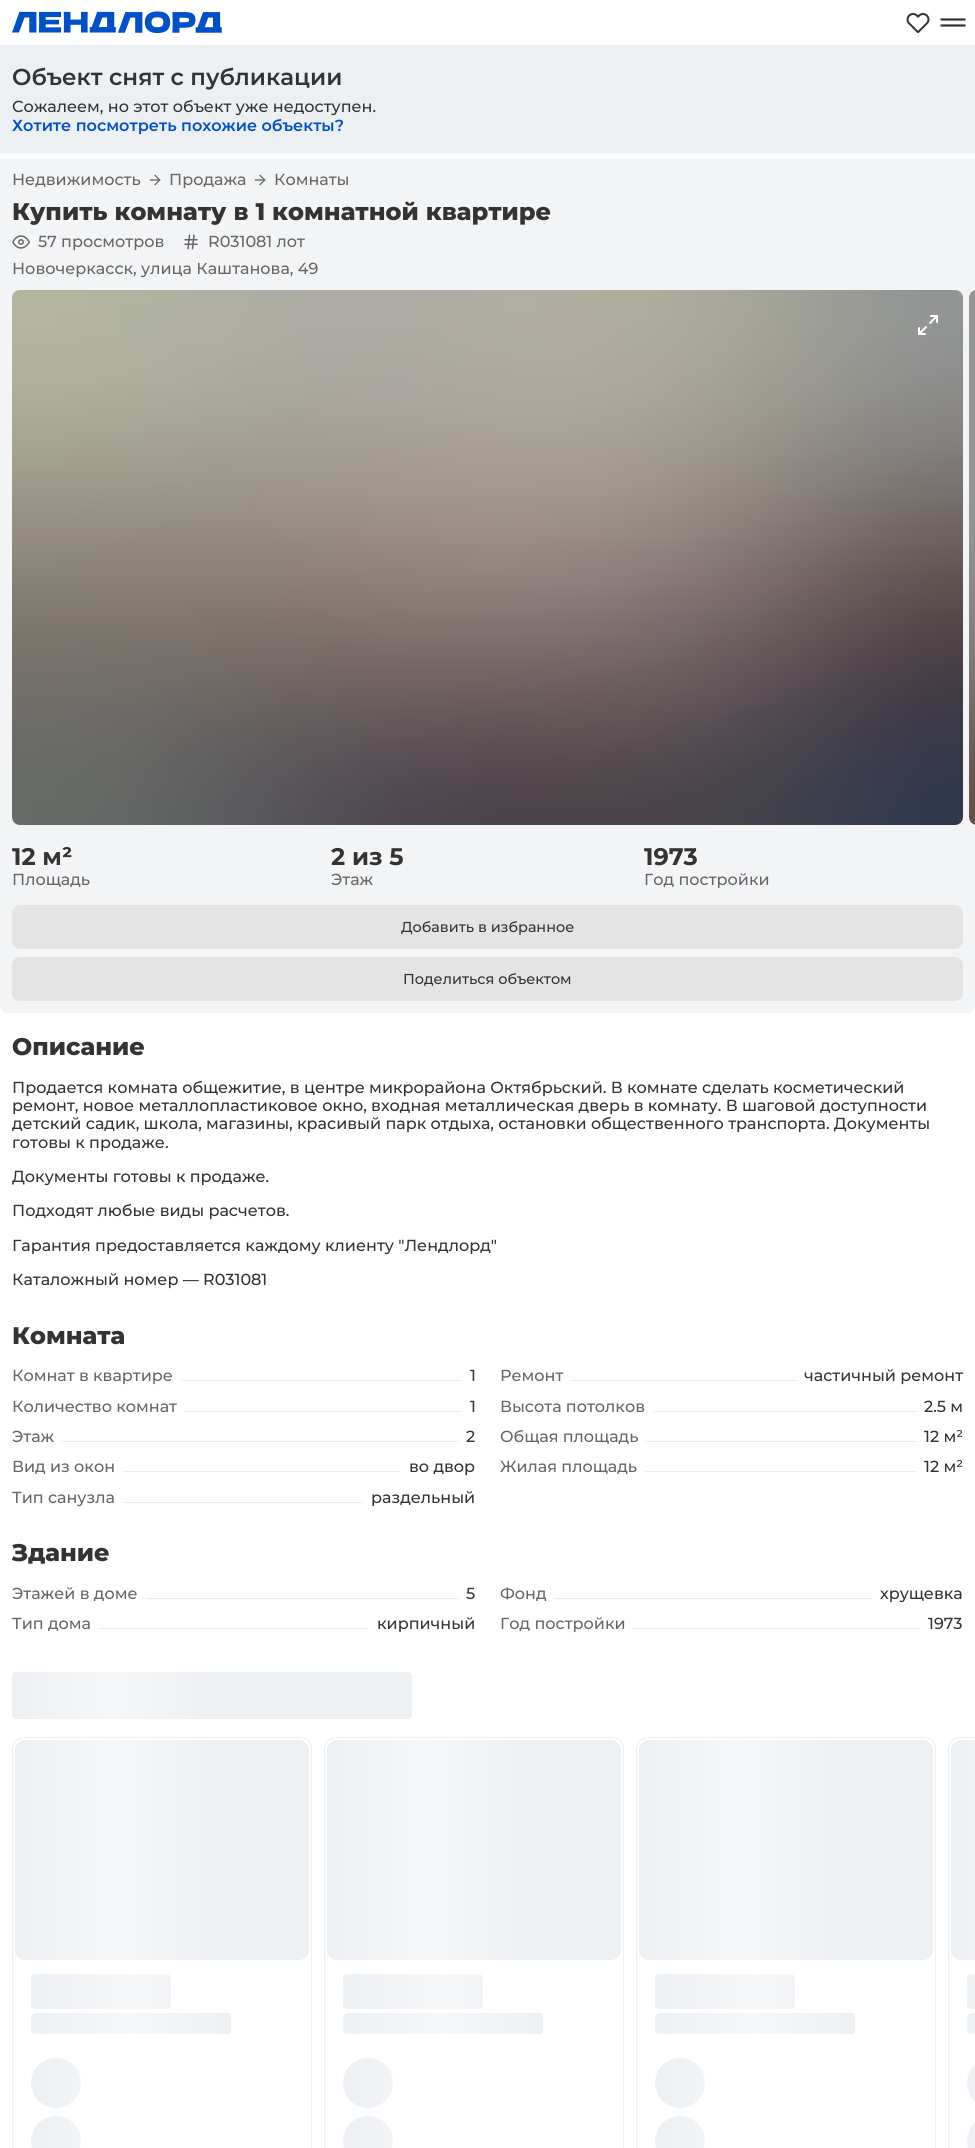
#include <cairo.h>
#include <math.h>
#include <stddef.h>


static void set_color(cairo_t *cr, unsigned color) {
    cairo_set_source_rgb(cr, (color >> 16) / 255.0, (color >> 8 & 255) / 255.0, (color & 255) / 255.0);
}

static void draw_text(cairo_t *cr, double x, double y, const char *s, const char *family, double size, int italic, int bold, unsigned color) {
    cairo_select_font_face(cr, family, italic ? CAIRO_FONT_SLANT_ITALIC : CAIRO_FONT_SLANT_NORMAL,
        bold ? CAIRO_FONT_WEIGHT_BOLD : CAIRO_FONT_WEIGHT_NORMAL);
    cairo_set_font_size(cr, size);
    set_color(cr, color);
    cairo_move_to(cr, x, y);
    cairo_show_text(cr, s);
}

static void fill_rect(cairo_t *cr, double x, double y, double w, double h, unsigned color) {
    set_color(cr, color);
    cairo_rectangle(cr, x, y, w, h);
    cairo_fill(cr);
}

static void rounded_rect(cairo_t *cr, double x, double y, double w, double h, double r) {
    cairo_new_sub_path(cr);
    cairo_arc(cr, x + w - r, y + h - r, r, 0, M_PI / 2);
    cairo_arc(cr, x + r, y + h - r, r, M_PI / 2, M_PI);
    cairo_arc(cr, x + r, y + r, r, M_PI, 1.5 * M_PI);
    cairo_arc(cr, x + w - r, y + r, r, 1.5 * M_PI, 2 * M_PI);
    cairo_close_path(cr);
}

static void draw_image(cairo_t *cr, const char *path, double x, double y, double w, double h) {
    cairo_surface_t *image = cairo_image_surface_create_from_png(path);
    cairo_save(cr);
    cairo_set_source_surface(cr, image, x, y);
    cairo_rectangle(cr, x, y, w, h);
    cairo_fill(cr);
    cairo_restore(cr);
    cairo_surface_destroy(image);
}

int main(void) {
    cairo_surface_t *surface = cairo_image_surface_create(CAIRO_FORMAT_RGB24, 975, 2148);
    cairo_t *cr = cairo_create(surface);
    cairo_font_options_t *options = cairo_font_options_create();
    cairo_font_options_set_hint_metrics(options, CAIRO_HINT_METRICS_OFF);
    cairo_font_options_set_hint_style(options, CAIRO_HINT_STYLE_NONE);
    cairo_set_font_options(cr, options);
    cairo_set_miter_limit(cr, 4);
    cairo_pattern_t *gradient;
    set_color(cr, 0xFFFFFF);
    cairo_paint(cr);
    draw_image(cr, "assets/img1.png", 12, 11, 210, 22);
    draw_image(cr, "assets/img2.png", 906, 13, 24, 21);
    cairo_new_path(cr);
    cairo_move_to(cr, 940.5, 19.5);
    cairo_line_to(cr, 965.5, 19.5);
    cairo_move_to(cr, 940.5, 25.5);
    cairo_line_to(cr, 965.5, 25.5);
    set_color(cr, 0x333333);
    cairo_set_line_width(cr, 2.2);
    cairo_stroke(cr);
    fill_rect(cr, 0, 45, 975, 108, 0xEDF0F3);
    draw_text(cr, 12, 85, "Объект снят с публикации", "Montserrat SemiBold", 23, 0, 0, 0x333333);
    draw_text(cr, 12, 112, "Сожалеем, но этот объект уже недоступен.", "Montserrat Medium", 16, 0, 0, 0x333333);
    draw_text(cr, 12, 131, "Хотите посмотреть похожие объекты?", "Montserrat SemiBold", 16, 0, 0, 0x0050CC);
    set_color(cr, 0xF3F4F6);
    cairo_new_path(cr);
    cairo_move_to(cr, 0, 159);
    cairo_line_to(cr, 975, 159);
    cairo_line_to(cr, 975, 1005);
    cairo_curve_to(cr, 975, 1009.5, 971.5, 1013, 967, 1013);
    cairo_line_to(cr, 8, 1013);
    cairo_curve_to(cr, 3.5, 1013, 0, 1009.5, 0, 1005);
    cairo_close_path(cr);
    cairo_fill(cr);
    draw_text(cr, 12, 185, "Недвижимость", "Montserrat Medium", 16, 0, 0, 0x666666);
    draw_image(cr, "assets/img3.png", 149, 174, 12, 12);
    draw_text(cr, 169, 185, "Продажа", "Montserrat Medium", 16, 0, 0, 0x666666);
    draw_image(cr, "assets/img3.png", 254, 174, 12, 12);
    draw_text(cr, 274, 185, "Комнаты", "Montserrat Medium", 16, 0, 0, 0x666666);
    draw_text(cr, 12, 220, "Купить комнату в 1 комнатной квартире", "Montserrat ExtraBold", 24, 0, 0, 0x333333);
    draw_image(cr, "assets/img4.png", 12, 235, 18, 14);
    draw_text(cr, 38, 247, "57 просмотров", "Montserrat Medium", 16, 0, 0, 0x666666);
    draw_image(cr, "assets/img5.png", 184, 234, 14, 16);
    draw_text(cr, 208, 247, "R031081 лот", "Montserrat Medium", 16, 0, 0, 0x666666);
    draw_text(cr, 12, 274, "Новочеркасск, улица Каштанова, 49", "Montserrat Medium", 16, 0, 0, 0x666666);
    set_color(cr, 0xEDF0F3);
    rounded_rect(cr, 12, 290, 951, 535, 8);
    cairo_fill(cr);
    draw_image(cr, "assets/img6.png", 12, 290, 951, 535);
    cairo_new_path(cr);
    cairo_move_to(cr, 977, 290);
    cairo_line_to(cr, 975, 290);
    cairo_line_to(cr, 975, 825);
    cairo_line_to(cr, 977, 825);
    cairo_curve_to(cr, 972.5, 825, 969, 821.5, 969, 817);
    cairo_line_to(cr, 969, 298);
    cairo_curve_to(cr, 969, 293.5, 972.5, 290, 977, 290);
    cairo_close_path(cr);
    cairo_fill(cr);
    draw_image(cr, "assets/img7.png", 969, 290, 6, 535);
    draw_image(cr, "assets/img8.png", 918, 315, 20, 20);
    draw_text(cr, 12, 865, "12 м²", "Montserrat", 24, 0, 1, 0x333333);
    draw_text(cr, 12, 885, "Площадь", "Montserrat Medium", 16, 0, 0, 0x666666);
    draw_text(cr, 331, 865, "2 из 5", "Montserrat", 24, 0, 1, 0x333333);
    draw_text(cr, 331, 885, "Этаж", "Montserrat Medium", 16, 0, 0, 0x666666);
    draw_text(cr, 644, 865, "1973", "Montserrat", 24, 0, 1, 0x333333);
    draw_text(cr, 644, 885, "Год постройки", "Montserrat Medium", 16, 0, 0, 0x666666);
    set_color(cr, 0xE4E4E4);
    rounded_rect(cr, 12.5, 905.5, 950, 43, 7.5);
    cairo_fill_preserve(cr);
    cairo_set_line_width(cr, 1);
    cairo_stroke(cr);
    draw_text(cr, 401, 932, "Добавить в избранное", "Montserrat Medium", 14.4, 0, 0, 0x333333);
    set_color(cr, 0xE4E4E4);
    rounded_rect(cr, 12.5, 957.5, 950, 43, 7.5);
    cairo_fill_preserve(cr);
    cairo_stroke(cr);
    draw_text(cr, 403, 984, "Поделиться объектом", "Montserrat Medium", 14.4, 0, 0, 0x333333);
    draw_text(cr, 12, 1055, "Описание", "Montserrat ExtraBold", 24, 0, 0, 0x333333);
    draw_text(cr, 12, 1093, "Продается комната общежитие, в центре микрорайона Октябрьский. В комнате сделать косметический", "Montserrat Medium", 16, 0, 0, 0x333333);
    draw_text(cr, 12, 1111, "ремонт, новое металлопластиковое окно, входная металлическая дверь в комнату. В шаговой доступности", "Montserrat Medium", 16, 0, 0, 0x333333);
    draw_text(cr, 12, 1129, "детский садик, школа, магазины, красивый парк отдыха, остановки общественного транспорта. Документы", "Montserrat Medium", 16, 0, 0, 0x333333);
    draw_text(cr, 12, 1148, "готовы к продаже.", "Montserrat Medium", 16, 0, 0, 0x333333);
    draw_text(cr, 12, 1182, "Документы готовы к продаже.", "Montserrat Medium", 16, 0, 0, 0x333333);
    draw_text(cr, 12, 1216, "Подходят любые виды расчетов.", "Montserrat Medium", 16, 0, 0, 0x333333);
    draw_text(cr, 12, 1251, "Гарантия предоставляется каждому клиенту \"Лендлорд\"", "Montserrat Medium", 16, 0, 0, 0x333333);
    draw_text(cr, 12, 1285, "Каталожный номер — R031081", "Montserrat Medium", 16, 0, 0, 0x333333);
    draw_text(cr, 12, 1344, "Комната", "Montserrat ExtraBold", 24, 0, 0, 0x333333);
    draw_text(cr, 12, 1381, "Комнат в квартире", "Montserrat Medium", 16, 0, 0, 0x666666);
    fill_rect(cr, 181, 1380, 281, 1, 0xECECEC);
    draw_text(cr, 470, 1381, "1", "Montserrat Medium", 16, 0, 0, 0x333333);
    draw_text(cr, 500, 1381, "Ремонт", "Montserrat Medium", 16, 0, 0, 0x666666);
    fill_rect(cr, 571, 1380, 225, 1, 0xECECEC);
    draw_text(cr, 804, 1381, "частичный ремонт", "Montserrat Medium", 16, 0, 0, 0x333333);
    draw_text(cr, 12, 1412, "Количество комнат", "Montserrat Medium", 16, 0, 0, 0x666666);
    fill_rect(cr, 185, 1411, 277, 1, 0xECECEC);
    draw_text(cr, 470, 1412, "1", "Montserrat Medium", 16, 0, 0, 0x333333);
    draw_text(cr, 500, 1412, "Высота потолков", "Montserrat Medium", 16, 0, 0, 0x666666);
    fill_rect(cr, 653, 1411, 263, 1, 0xECECEC);
    draw_text(cr, 924, 1412, "2.5 м", "Montserrat Medium", 16, 0, 0, 0x333333);
    draw_text(cr, 12, 1442, "Этаж", "Montserrat Medium", 16, 0, 0, 0x666666);
    fill_rect(cr, 62, 1441, 396, 1, 0xECECEC);
    draw_text(cr, 466, 1442, "2", "Montserrat Medium", 16, 0, 0, 0x333333);
    draw_text(cr, 500, 1442, "Общая площадь", "Montserrat Medium", 16, 0, 0, 0x666666);
    fill_rect(cr, 646, 1441, 270, 1, 0xECECEC);
    draw_text(cr, 924, 1442, "12 м²", "Montserrat Medium", 16, 0, 0, 0x333333);
    draw_text(cr, 12, 1472, "Вид из окон", "Montserrat Medium", 16, 0, 0, 0x666666);
    fill_rect(cr, 123, 1471, 278, 1, 0xECECEC);
    draw_text(cr, 409, 1472, "во двор", "Montserrat Medium", 16, 0, 0, 0x333333);
    draw_text(cr, 500, 1472, "Жилая площадь", "Montserrat Medium", 16, 0, 0, 0x666666);
    fill_rect(cr, 645, 1471, 271, 1, 0xECECEC);
    draw_text(cr, 924, 1472, "12 м²", "Montserrat Medium", 16, 0, 0, 0x333333);
    draw_text(cr, 12, 1503, "Тип санузла", "Montserrat Medium", 16, 0, 0, 0x666666);
    fill_rect(cr, 123, 1502, 240, 1, 0xECECEC);
    draw_text(cr, 371, 1503, "раздельный", "Montserrat Medium", 16, 0, 0, 0x333333);
    draw_text(cr, 12, 1561, "Здание", "Montserrat ExtraBold", 24, 0, 0, 0x333333);
    draw_text(cr, 12, 1599, "Этажей в доме", "Montserrat Medium", 16, 0, 0, 0x666666);
    fill_rect(cr, 146, 1598, 312, 1, 0xECECEC);
    draw_text(cr, 466, 1599, "5", "Montserrat Medium", 16, 0, 0, 0x333333);
    draw_text(cr, 500, 1599, "Фонд", "Montserrat Medium", 16, 0, 0, 0x666666);
    fill_rect(cr, 554, 1598, 318, 1, 0xECECEC);
    draw_text(cr, 880, 1599, "хрущевка", "Montserrat Medium", 16, 0, 0, 0x333333);
    draw_text(cr, 12, 1629, "Тип дома", "Montserrat Medium", 16, 0, 0, 0x666666);
    fill_rect(cr, 99, 1628, 270, 1, 0xECECEC);
    draw_text(cr, 377, 1629, "кирпичный", "Montserrat Medium", 16, 0, 0, 0x333333);
    draw_text(cr, 500, 1629, "Год постройки", "Montserrat Medium", 16, 0, 0, 0x666666);
    fill_rect(cr, 633, 1628, 287, 1, 0xECECEC);
    draw_text(cr, 928, 1629, "1973", "Montserrat Medium", 16, 0, 0, 0x333333);
    set_color(cr, 0xEDF0F3);
    rounded_rect(cr, 12, 1672, 400, 47, 4);
    cairo_fill(cr);
    gradient = cairo_pattern_create_linear(12, 1696, 212, 1696);
    cairo_pattern_add_color_stop_rgba(gradient, 0, 0.929, 0.941, 0.953, 1);
    cairo_pattern_add_color_stop_rgba(gradient, 0.5, 0.965, 0.969, 0.976, 1);
    cairo_pattern_add_color_stop_rgba(gradient, 1, 0.929, 0.941, 0.953, 1);
    cairo_set_source(cr, gradient);
    cairo_pattern_destroy(gradient);
    cairo_new_path(cr);
    cairo_move_to(cr, 16, 1672);
    cairo_line_to(cr, 212, 1672);
    cairo_line_to(cr, 212, 1719);
    cairo_line_to(cr, 16, 1719);
    cairo_curve_to(cr, 14, 1719, 12, 1717, 12, 1715);
    cairo_line_to(cr, 12, 1676);
    cairo_curve_to(cr, 12, 1674, 14, 1672, 16, 1672);
    cairo_close_path(cr);
    cairo_fill(cr);
    rounded_rect(cr, 12.5, 1737.5, 299, 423, 11.5);
    set_color(cr, 0xEDF0F3);
    cairo_stroke(cr);
    rounded_rect(cr, 15, 1740, 294, 220, 10);
    cairo_fill(cr);
    gradient = cairo_pattern_create_linear(15, 1850, 215, 1850);
    cairo_pattern_add_color_stop_rgba(gradient, 0, 0.929, 0.941, 0.953, 1);
    cairo_pattern_add_color_stop_rgba(gradient, 0.5, 0.965, 0.969, 0.976, 1);
    cairo_pattern_add_color_stop_rgba(gradient, 1, 0.929, 0.941, 0.953, 1);
    cairo_set_source(cr, gradient);
    cairo_pattern_destroy(gradient);
    cairo_new_path(cr);
    cairo_move_to(cr, 25, 1740);
    cairo_line_to(cr, 215, 1740);
    cairo_line_to(cr, 215, 1960);
    cairo_line_to(cr, 25, 1960);
    cairo_curve_to(cr, 19.5, 1960, 15, 1955.5, 15, 1950);
    cairo_line_to(cr, 15, 1750);
    cairo_curve_to(cr, 15, 1744.5, 19.5, 1740, 25, 1740);
    cairo_close_path(cr);
    cairo_fill(cr);
    gradient = cairo_pattern_create_linear(31, 1992, 231, 1992);
    cairo_pattern_add_color_stop_rgba(gradient, 0, 0.929, 0.941, 0.953, 1);
    cairo_pattern_add_color_stop_rgba(gradient, 0.5, 0.965, 0.969, 0.976, 1);
    cairo_pattern_add_color_stop_rgba(gradient, 1, 0.929, 0.941, 0.953, 1);
    cairo_set_source(cr, gradient);
    cairo_pattern_destroy(gradient);
    rounded_rect(cr, 31, 1974, 140, 35, 4);
    cairo_fill(cr);
    gradient = cairo_pattern_create_linear(31, 2024, 231, 2024);
    cairo_pattern_add_color_stop_rgba(gradient, 0, 0.929, 0.941, 0.953, 1);
    cairo_pattern_add_color_stop_rgba(gradient, 0.5, 0.965, 0.969, 0.976, 1);
    cairo_pattern_add_color_stop_rgba(gradient, 1, 0.929, 0.941, 0.953, 1);
    cairo_set_source(cr, gradient);
    cairo_pattern_destroy(gradient);
    rounded_rect(cr, 31, 2013, 200, 21, 4);
    cairo_fill(cr);
    gradient = cairo_pattern_create_linear(31, 2083, 231, 2083);
    cairo_pattern_add_color_stop_rgba(gradient, 0, 0.929, 0.941, 0.953, 1);
    cairo_pattern_add_color_stop_rgba(gradient, 0.5, 0.965, 0.969, 0.976, 1);
    cairo_pattern_add_color_stop_rgba(gradient, 1, 0.929, 0.941, 0.953, 1);
    cairo_set_source(cr, gradient);
    cairo_pattern_destroy(gradient);
    cairo_arc(cr, 56, 2083, 25, 0, 2 * M_PI);
    cairo_fill(cr);
    gradient = cairo_pattern_create_linear(31, 2141, 231, 2141);
    cairo_pattern_add_color_stop_rgba(gradient, 0, 0.929, 0.941, 0.953, 1);
    cairo_pattern_add_color_stop_rgba(gradient, 0.5, 0.965, 0.969, 0.976, 1);
    cairo_pattern_add_color_stop_rgba(gradient, 1, 0.929, 0.941, 0.953, 1);
    cairo_set_source(cr, gradient);
    cairo_pattern_destroy(gradient);
    cairo_arc(cr, 56, 2141, 25, 0, 2 * M_PI);
    cairo_fill(cr);
    rounded_rect(cr, 324.5, 1737.5, 299, 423, 11.5);
    set_color(cr, 0xEDF0F3);
    cairo_stroke(cr);
    rounded_rect(cr, 327, 1740, 294, 220, 10);
    cairo_fill(cr);
    gradient = cairo_pattern_create_linear(327, 1850, 527, 1850);
    cairo_pattern_add_color_stop_rgba(gradient, 0, 0.929, 0.941, 0.953, 1);
    cairo_pattern_add_color_stop_rgba(gradient, 0.5, 0.965, 0.969, 0.976, 1);
    cairo_pattern_add_color_stop_rgba(gradient, 1, 0.929, 0.941, 0.953, 1);
    cairo_set_source(cr, gradient);
    cairo_pattern_destroy(gradient);
    cairo_new_path(cr);
    cairo_move_to(cr, 337, 1740);
    cairo_line_to(cr, 527, 1740);
    cairo_line_to(cr, 527, 1960);
    cairo_line_to(cr, 337, 1960);
    cairo_curve_to(cr, 331.5, 1960, 327, 1955.5, 327, 1950);
    cairo_line_to(cr, 327, 1750);
    cairo_curve_to(cr, 327, 1744.5, 331.5, 1740, 337, 1740);
    cairo_close_path(cr);
    cairo_fill(cr);
    gradient = cairo_pattern_create_linear(343, 1992, 543, 1992);
    cairo_pattern_add_color_stop_rgba(gradient, 0, 0.929, 0.941, 0.953, 1);
    cairo_pattern_add_color_stop_rgba(gradient, 0.5, 0.965, 0.969, 0.976, 1);
    cairo_pattern_add_color_stop_rgba(gradient, 1, 0.929, 0.941, 0.953, 1);
    cairo_set_source(cr, gradient);
    cairo_pattern_destroy(gradient);
    rounded_rect(cr, 343, 1974, 140, 35, 4);
    cairo_fill(cr);
    gradient = cairo_pattern_create_linear(343, 2024, 543, 2024);
    cairo_pattern_add_color_stop_rgba(gradient, 0, 0.929, 0.941, 0.953, 1);
    cairo_pattern_add_color_stop_rgba(gradient, 0.5, 0.965, 0.969, 0.976, 1);
    cairo_pattern_add_color_stop_rgba(gradient, 1, 0.929, 0.941, 0.953, 1);
    cairo_set_source(cr, gradient);
    cairo_pattern_destroy(gradient);
    rounded_rect(cr, 343, 2013, 200, 21, 4);
    cairo_fill(cr);
    gradient = cairo_pattern_create_linear(343, 2083, 543, 2083);
    cairo_pattern_add_color_stop_rgba(gradient, 0, 0.929, 0.941, 0.953, 1);
    cairo_pattern_add_color_stop_rgba(gradient, 0.5, 0.965, 0.969, 0.976, 1);
    cairo_pattern_add_color_stop_rgba(gradient, 1, 0.929, 0.941, 0.953, 1);
    cairo_set_source(cr, gradient);
    cairo_pattern_destroy(gradient);
    cairo_arc(cr, 368, 2083, 25, 0, 2 * M_PI);
    cairo_fill(cr);
    gradient = cairo_pattern_create_linear(343, 2141, 543, 2141);
    cairo_pattern_add_color_stop_rgba(gradient, 0, 0.929, 0.941, 0.953, 1);
    cairo_pattern_add_color_stop_rgba(gradient, 0.5, 0.965, 0.969, 0.976, 1);
    cairo_pattern_add_color_stop_rgba(gradient, 1, 0.929, 0.941, 0.953, 1);
    cairo_set_source(cr, gradient);
    cairo_pattern_destroy(gradient);
    cairo_arc(cr, 368, 2141, 25, 0, 2 * M_PI);
    cairo_fill(cr);
    rounded_rect(cr, 636.5, 1737.5, 299, 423, 11.5);
    set_color(cr, 0xEDF0F3);
    cairo_stroke(cr);
    rounded_rect(cr, 639, 1740, 294, 220, 10);
    cairo_fill(cr);
    gradient = cairo_pattern_create_linear(639, 1850, 839, 1850);
    cairo_pattern_add_color_stop_rgba(gradient, 0, 0.929, 0.941, 0.953, 1);
    cairo_pattern_add_color_stop_rgba(gradient, 0.5, 0.965, 0.969, 0.976, 1);
    cairo_pattern_add_color_stop_rgba(gradient, 1, 0.929, 0.941, 0.953, 1);
    cairo_set_source(cr, gradient);
    cairo_pattern_destroy(gradient);
    cairo_new_path(cr);
    cairo_move_to(cr, 649, 1740);
    cairo_line_to(cr, 839, 1740);
    cairo_line_to(cr, 839, 1960);
    cairo_line_to(cr, 649, 1960);
    cairo_curve_to(cr, 643.5, 1960, 639, 1955.5, 639, 1950);
    cairo_line_to(cr, 639, 1750);
    cairo_curve_to(cr, 639, 1744.5, 643.5, 1740, 649, 1740);
    cairo_close_path(cr);
    cairo_fill(cr);
    gradient = cairo_pattern_create_linear(655, 1992, 855, 1992);
    cairo_pattern_add_color_stop_rgba(gradient, 0, 0.929, 0.941, 0.953, 1);
    cairo_pattern_add_color_stop_rgba(gradient, 0.5, 0.965, 0.969, 0.976, 1);
    cairo_pattern_add_color_stop_rgba(gradient, 1, 0.929, 0.941, 0.953, 1);
    cairo_set_source(cr, gradient);
    cairo_pattern_destroy(gradient);
    rounded_rect(cr, 655, 1974, 140, 35, 4);
    cairo_fill(cr);
    gradient = cairo_pattern_create_linear(655, 2024, 855, 2024);
    cairo_pattern_add_color_stop_rgba(gradient, 0, 0.929, 0.941, 0.953, 1);
    cairo_pattern_add_color_stop_rgba(gradient, 0.5, 0.965, 0.969, 0.976, 1);
    cairo_pattern_add_color_stop_rgba(gradient, 1, 0.929, 0.941, 0.953, 1);
    cairo_set_source(cr, gradient);
    cairo_pattern_destroy(gradient);
    rounded_rect(cr, 655, 2013, 200, 21, 4);
    cairo_fill(cr);
    gradient = cairo_pattern_create_linear(655, 2083, 855, 2083);
    cairo_pattern_add_color_stop_rgba(gradient, 0, 0.929, 0.941, 0.953, 1);
    cairo_pattern_add_color_stop_rgba(gradient, 0.5, 0.965, 0.969, 0.976, 1);
    cairo_pattern_add_color_stop_rgba(gradient, 1, 0.929, 0.941, 0.953, 1);
    cairo_set_source(cr, gradient);
    cairo_pattern_destroy(gradient);
    cairo_arc(cr, 680, 2083, 25, 0, 2 * M_PI);
    cairo_fill(cr);
    gradient = cairo_pattern_create_linear(655, 2141, 855, 2141);
    cairo_pattern_add_color_stop_rgba(gradient, 0, 0.929, 0.941, 0.953, 1);
    cairo_pattern_add_color_stop_rgba(gradient, 0.5, 0.965, 0.969, 0.976, 1);
    cairo_pattern_add_color_stop_rgba(gradient, 1, 0.929, 0.941, 0.953, 1);
    cairo_set_source(cr, gradient);
    cairo_pattern_destroy(gradient);
    cairo_arc(cr, 680, 2141, 25, 0, 2 * M_PI);
    cairo_fill(cr);
    rounded_rect(cr, 948.5, 1737.5, 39, 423, 11.5);
    set_color(cr, 0xEDF0F3);
    cairo_stroke(cr);
    gradient = cairo_pattern_create_linear(951, 1850, 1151, 1850);
    cairo_pattern_add_color_stop_rgba(gradient, 0, 0.929, 0.941, 0.953, 1);
    cairo_pattern_add_color_stop_rgba(gradient, 0.5, 0.965, 0.969, 0.976, 1);
    cairo_pattern_add_color_stop_rgba(gradient, 1, 0.929, 0.941, 0.953, 1);
    cairo_set_source(cr, gradient);
    cairo_pattern_destroy(gradient);
    cairo_new_path(cr);
    cairo_move_to(cr, 961, 1740);
    cairo_line_to(cr, 975, 1740);
    cairo_line_to(cr, 975, 1960);
    cairo_line_to(cr, 961, 1960);
    cairo_curve_to(cr, 955.5, 1960, 951, 1955.5, 951, 1950);
    cairo_line_to(cr, 951, 1750);
    cairo_curve_to(cr, 951, 1744.5, 955.5, 1740, 961, 1740);
    cairo_close_path(cr);
    cairo_fill(cr);
    gradient = cairo_pattern_create_linear(967, 1992, 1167, 1992);
    cairo_pattern_add_color_stop_rgba(gradient, 0, 0.929, 0.941, 0.953, 1);
    cairo_pattern_add_color_stop_rgba(gradient, 0.5, 0.965, 0.969, 0.976, 1);
    cairo_pattern_add_color_stop_rgba(gradient, 1, 0.929, 0.941, 0.953, 1);
    cairo_set_source(cr, gradient);
    cairo_pattern_destroy(gradient);
    cairo_new_path(cr);
    cairo_move_to(cr, 971, 1974);
    cairo_line_to(cr, 975, 1974);
    cairo_line_to(cr, 975, 2009);
    cairo_line_to(cr, 971, 2009);
    cairo_curve_to(cr, 969, 2009, 967, 2007, 967, 2005);
    cairo_line_to(cr, 967, 1978);
    cairo_curve_to(cr, 967, 1976, 969, 1974, 971, 1974);
    cairo_close_path(cr);
    cairo_fill(cr);
    gradient = cairo_pattern_create_linear(967, 2024, 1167, 2024);
    cairo_pattern_add_color_stop_rgba(gradient, 0, 0.929, 0.941, 0.953, 1);
    cairo_pattern_add_color_stop_rgba(gradient, 0.5, 0.965, 0.969, 0.976, 1);
    cairo_pattern_add_color_stop_rgba(gradient, 1, 0.929, 0.941, 0.953, 1);
    cairo_set_source(cr, gradient);
    cairo_pattern_destroy(gradient);
    cairo_new_path(cr);
    cairo_move_to(cr, 971, 2013);
    cairo_line_to(cr, 975, 2013);
    cairo_line_to(cr, 975, 2034);
    cairo_line_to(cr, 971, 2034);
    cairo_curve_to(cr, 969, 2034, 967, 2032, 967, 2030);
    cairo_line_to(cr, 967, 2017);
    cairo_curve_to(cr, 967, 2015, 969, 2013, 971, 2013);
    cairo_close_path(cr);
    cairo_fill(cr);
    gradient = cairo_pattern_create_linear(967, 2083, 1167, 2083);
    cairo_pattern_add_color_stop_rgba(gradient, 0, 0.929, 0.941, 0.953, 1);
    cairo_pattern_add_color_stop_rgba(gradient, 0.5, 0.965, 0.969, 0.976, 1);
    cairo_pattern_add_color_stop_rgba(gradient, 1, 0.929, 0.941, 0.953, 1);
    cairo_set_source(cr, gradient);
    cairo_pattern_destroy(gradient);
    cairo_new_path(cr);
    cairo_move_to(cr, 992, 2058);
    cairo_line_to(cr, 975, 2058);
    cairo_line_to(cr, 975, 2108);
    cairo_line_to(cr, 992, 2108);
    cairo_curve_to(cr, 978, 2108, 967, 2097, 967, 2083);
    cairo_curve_to(cr, 967, 2069, 978, 2058, 992, 2058);
    cairo_close_path(cr);
    cairo_fill(cr);
    gradient = cairo_pattern_create_linear(967, 2141, 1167, 2141);
    cairo_pattern_add_color_stop_rgba(gradient, 0, 0.929, 0.941, 0.953, 1);
    cairo_pattern_add_color_stop_rgba(gradient, 0.5, 0.965, 0.969, 0.976, 1);
    cairo_pattern_add_color_stop_rgba(gradient, 1, 0.929, 0.941, 0.953, 1);
    cairo_set_source(cr, gradient);
    cairo_pattern_destroy(gradient);
    cairo_new_path(cr);
    cairo_move_to(cr, 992, 2116);
    cairo_line_to(cr, 975, 2116);
    cairo_line_to(cr, 975, 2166);
    cairo_line_to(cr, 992, 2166);
    cairo_curve_to(cr, 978, 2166, 967, 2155, 967, 2141);
    cairo_curve_to(cr, 967, 2127, 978, 2116, 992, 2116);
    cairo_close_path(cr);
    cairo_fill(cr);
    cairo_surface_write_to_png(surface, "output.png");
    cairo_font_options_destroy(options);
    cairo_destroy(cr);
    cairo_surface_destroy(surface);
    return 0;
}
